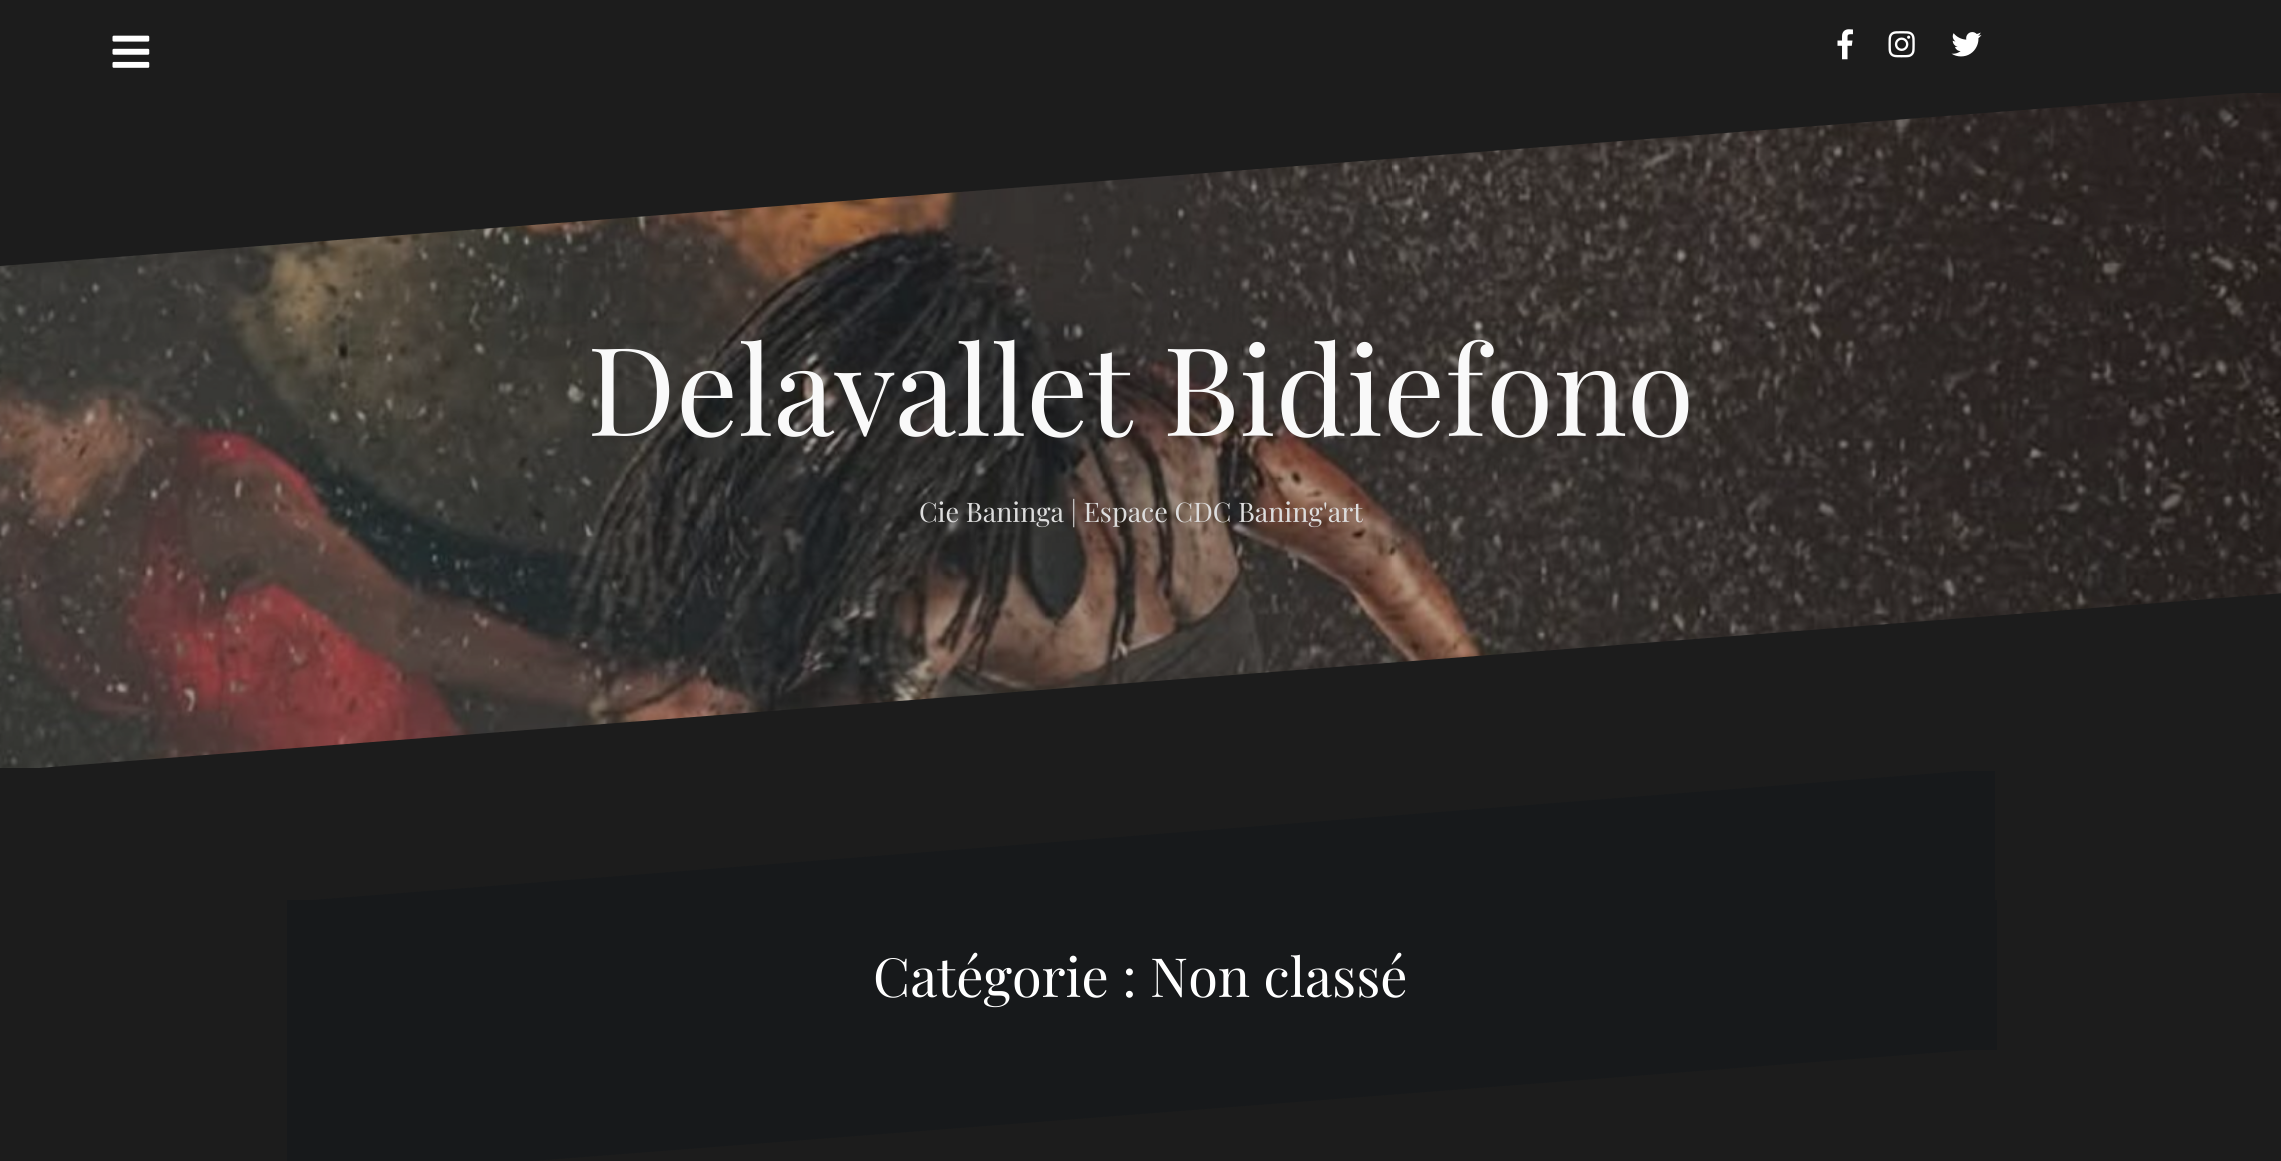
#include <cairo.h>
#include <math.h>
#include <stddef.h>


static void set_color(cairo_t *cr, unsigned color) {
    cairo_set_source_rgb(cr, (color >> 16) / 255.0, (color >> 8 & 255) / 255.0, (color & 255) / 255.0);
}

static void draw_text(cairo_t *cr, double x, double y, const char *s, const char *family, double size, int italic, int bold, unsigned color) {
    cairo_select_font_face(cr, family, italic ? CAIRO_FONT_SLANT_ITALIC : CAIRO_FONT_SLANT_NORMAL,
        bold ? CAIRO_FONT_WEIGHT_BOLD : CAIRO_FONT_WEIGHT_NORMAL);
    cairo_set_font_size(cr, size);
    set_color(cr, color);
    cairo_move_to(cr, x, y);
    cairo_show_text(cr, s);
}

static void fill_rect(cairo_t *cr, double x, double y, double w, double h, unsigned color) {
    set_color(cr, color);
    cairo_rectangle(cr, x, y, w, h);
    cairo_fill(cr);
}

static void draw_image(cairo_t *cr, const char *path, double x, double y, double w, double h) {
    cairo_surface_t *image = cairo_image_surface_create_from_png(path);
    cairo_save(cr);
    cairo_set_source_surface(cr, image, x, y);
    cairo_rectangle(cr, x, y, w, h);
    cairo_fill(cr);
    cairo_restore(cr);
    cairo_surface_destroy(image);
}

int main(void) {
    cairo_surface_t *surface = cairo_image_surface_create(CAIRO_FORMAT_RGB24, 2281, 1161);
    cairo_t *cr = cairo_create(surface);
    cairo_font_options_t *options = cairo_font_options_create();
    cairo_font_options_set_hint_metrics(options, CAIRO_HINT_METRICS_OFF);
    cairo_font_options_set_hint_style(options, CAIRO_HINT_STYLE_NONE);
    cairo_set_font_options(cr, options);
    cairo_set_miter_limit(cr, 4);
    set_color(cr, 0x1C1C1C);
    cairo_paint(cr);
    draw_image(cr, "assets/img1.png", 112, 35, 38, 33);
    draw_image(cr, "assets/img2.png", 1837, 29, 16, 31);
    draw_image(cr, "assets/img3.png", 1888, 31, 27, 27);
    draw_image(cr, "assets/img4.png", 1951, 32, 31, 25);
    draw_image(cr, "assets/img5.png", 0, 93, 2281, 675);
    set_color(cr, 0x1C1C1C);
    cairo_new_path(cr);
    cairo_move_to(cr, 0, 266);
    cairo_line_to(cr, 0, 90);
    cairo_line_to(cr, 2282, 90);
    cairo_fill(cr);
    draw_text(cr, 587, 436, "Delavallet Bidiefono", "Playfair Display", 123, 0, 0, 0xF9F9F9);
    draw_text(cr, 919, 522, "Cie Baninga | Espace CDC Baning'art", "Playfair Display", 27, 0, 0, 0xDDDDDD);
    fill_rect(cr, 287, 900, 1710, 150, 0x17191B);
    cairo_save(cr);
    cairo_rectangle(cr, 287, 767, 1708, 135);
    cairo_clip(cr);
    cairo_new_path(cr);
    cairo_move_to(cr, 2028, 766);
    cairo_line_to(cr, 2028, 902);
    cairo_line_to(cr, 286, 902);
    cairo_fill(cr);
    cairo_restore(cr);
    set_color(cr, 0x1C1C1C);
    cairo_new_path(cr);
    cairo_move_to(cr, 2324, 590);
    cairo_line_to(cr, 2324, 771);
    cairo_line_to(cr, 0, 771);
    cairo_fill(cr);
    draw_text(cr, 873, 997, "Catégorie : Non classé", "Playfair Display", 54, 0, 0, 0xFFFFFF);
    cairo_save(cr);
    cairo_rectangle(cr, 287, 1049, 1708, 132);
    cairo_clip(cr);
    set_color(cr, 0x17191B);
    cairo_new_path(cr);
    cairo_move_to(cr, 286, 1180);
    cairo_line_to(cr, 286, 1048);
    cairo_line_to(cr, 1996, 1048);
    cairo_fill(cr);
    cairo_restore(cr);
    cairo_surface_write_to_png(surface, "output.png");
    cairo_font_options_destroy(options);
    cairo_destroy(cr);
    cairo_surface_destroy(surface);
    return 0;
}
